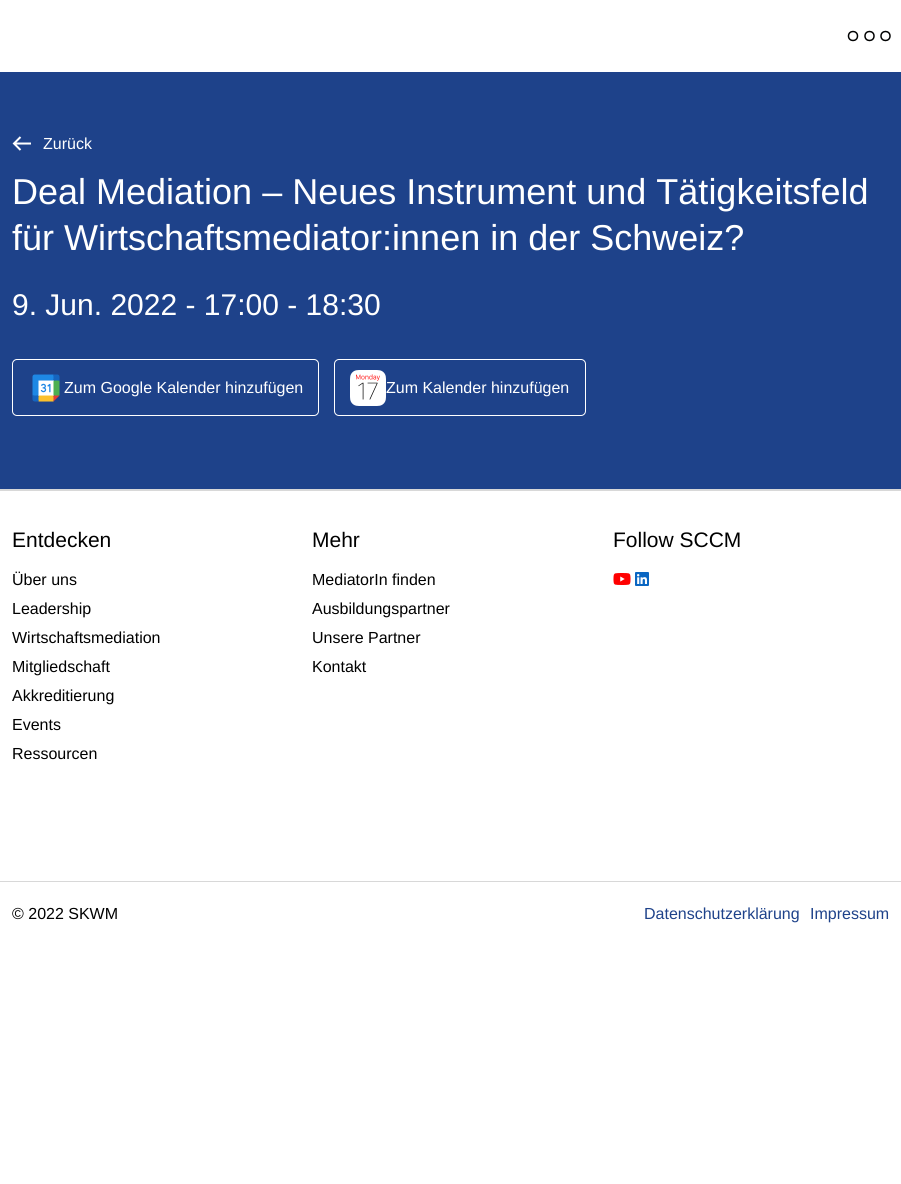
#include <cairo.h>
#include <math.h>
#include <stddef.h>


static void set_color(cairo_t *cr, unsigned color) {
    cairo_set_source_rgb(cr, (color >> 16) / 255.0, (color >> 8 & 255) / 255.0, (color & 255) / 255.0);
}

static void draw_text(cairo_t *cr, double x, double y, const char *s, const char *family, double size, int italic, int bold, unsigned color) {
    cairo_select_font_face(cr, family, italic ? CAIRO_FONT_SLANT_ITALIC : CAIRO_FONT_SLANT_NORMAL,
        bold ? CAIRO_FONT_WEIGHT_BOLD : CAIRO_FONT_WEIGHT_NORMAL);
    cairo_set_font_size(cr, size);
    set_color(cr, color);
    cairo_move_to(cr, x, y);
    cairo_show_text(cr, s);
}

static void fill_rect(cairo_t *cr, double x, double y, double w, double h, unsigned color) {
    set_color(cr, color);
    cairo_rectangle(cr, x, y, w, h);
    cairo_fill(cr);
}

static void rounded_rect(cairo_t *cr, double x, double y, double w, double h, double r) {
    cairo_new_sub_path(cr);
    cairo_arc(cr, x + w - r, y + h - r, r, 0, M_PI / 2);
    cairo_arc(cr, x + r, y + h - r, r, M_PI / 2, M_PI);
    cairo_arc(cr, x + r, y + r, r, M_PI, 1.5 * M_PI);
    cairo_arc(cr, x + w - r, y + r, r, 1.5 * M_PI, 2 * M_PI);
    cairo_close_path(cr);
}

static void draw_image(cairo_t *cr, const char *path, double x, double y, double w, double h) {
    cairo_surface_t *image = cairo_image_surface_create_from_png(path);
    cairo_save(cr);
    cairo_set_source_surface(cr, image, x, y);
    cairo_rectangle(cr, x, y, w, h);
    cairo_fill(cr);
    cairo_restore(cr);
    cairo_surface_destroy(image);
}

int main(void) {
    cairo_surface_t *surface = cairo_image_surface_create(CAIRO_FORMAT_RGB24, 901, 1184);
    cairo_t *cr = cairo_create(surface);
    cairo_font_options_t *options = cairo_font_options_create();
    cairo_font_options_set_hint_metrics(options, CAIRO_HINT_METRICS_OFF);
    cairo_font_options_set_hint_style(options, CAIRO_HINT_STYLE_NONE);
    cairo_set_font_options(cr, options);
    cairo_set_miter_limit(cr, 4);
    set_color(cr, 0xFFFFFF);
    cairo_paint(cr);
    cairo_arc(cr, 853, 36, 4.5, 0, 2 * M_PI);
    set_color(cr, 0x010202);
    cairo_set_line_width(cr, 1.5);
    cairo_stroke(cr);
    cairo_arc(cr, 869.5, 36, 4.5, 0, 2 * M_PI);
    cairo_stroke(cr);
    cairo_arc(cr, 885.5, 36, 4.5, 0, 2 * M_PI);
    cairo_stroke(cr);
    fill_rect(cr, 0, 72, 901, 417, 0x1E428A);
    cairo_new_path(cr);
    cairo_move_to(cr, 31, 143.5);
    cairo_line_to(cr, 14, 143.5);
    cairo_move_to(cr, 20.5, 150);
    cairo_line_to(cr, 14, 143.5);
    cairo_line_to(cr, 20.5, 137);
    set_color(cr, 0xFFFFFF);
    cairo_set_line_width(cr, 2);
    cairo_stroke(cr);
    draw_text(cr, 43, 149, "Zurück", "Liberation Sans", 16, 0, 0, 0xFFFFFF);
    draw_text(cr, 12, 204, "Deal Mediation – Neues Instrument und Tätigkeitsfeld", "Liberation Sans", 36, 0, 0, 0xFFFFFF);
    draw_text(cr, 12, 250, "für Wirtschaftsmediator:innen in der Schweiz?", "Liberation Sans", 36, 0, 0, 0xFFFFFF);
    draw_text(cr, 12, 315, "9. Jun. 2022 - 17:00 - 18:30", "Liberation Sans", 30, 0, 0, 0xFFFFFF);
    rounded_rect(cr, 12.5, 359.5, 306, 56, 4.5);
    cairo_set_line_width(cr, 1);
    cairo_stroke(cr);
    draw_image(cr, "assets/img1.png", 32, 374, 28, 28);
    draw_text(cr, 64, 393, "Zum Google Kalender hinzufügen", "Liberation Sans", 16, 0, 0, 0xFFFFFF);
    rounded_rect(cr, 334.5, 359.5, 251, 56, 4.5);
    cairo_stroke(cr);
    draw_image(cr, "assets/img2.png", 350, 370, 36, 36);
    draw_text(cr, 386, 393, "Zum Kalender hinzufügen", "Liberation Sans", 16, 0, 0, 0xFFFFFF);
    fill_rect(cr, 0, 489, 901, 2, 0xD8D8D8);
    draw_text(cr, 12, 547, "Entdecken", "Liberation Sans", 21, 0, 0, 0x000000);
    draw_text(cr, 12, 585, "Über uns", "Liberation Sans", 16, 0, 0, 0x000000);
    draw_text(cr, 12, 614, "Leadership", "Liberation Sans", 16, 0, 0, 0x000000);
    draw_text(cr, 12, 643, "Wirtschaftsmediation", "Liberation Sans", 16, 0, 0, 0x000000);
    draw_text(cr, 12, 672, "Mitgliedschaft", "Liberation Sans", 16, 0, 0, 0x000000);
    draw_text(cr, 12, 701, "Akkreditierung", "Liberation Sans", 16, 0, 0, 0x000000);
    draw_text(cr, 12, 730, "Events", "Liberation Sans", 16, 0, 0, 0x000000);
    draw_text(cr, 12, 759, "Ressourcen", "Liberation Sans", 16, 0, 0, 0x000000);
    draw_text(cr, 312, 547, "Mehr", "Liberation Sans", 21, 0, 0, 0x000000);
    draw_text(cr, 312, 585, "MediatorIn finden", "Liberation Sans", 16, 0, 0, 0x000000);
    draw_text(cr, 312, 614, "Ausbildungspartner", "Liberation Sans", 16, 0, 0, 0x000000);
    draw_text(cr, 312, 643, "Unsere Partner", "Liberation Sans", 16, 0, 0, 0x000000);
    draw_text(cr, 312, 672, "Kontakt", "Liberation Sans", 16, 0, 0, 0x000000);
    draw_text(cr, 613, 547, "Follow SCCM", "Liberation Sans", 21, 0, 0, 0x000000);
    draw_image(cr, "assets/img3.png", 613, 573, 18, 12);
    draw_image(cr, "assets/img4.png", 635, 572, 14, 14);
    fill_rect(cr, 0, 881, 901, 1, 0xD8D8D8);
    draw_text(cr, 12, 919, "© 2022 SKWM", "Liberation Sans", 16, 0, 0, 0x000000);
    draw_text(cr, 644, 919, "Datenschutzerklärung", "Liberation Sans", 16, 0, 0, 0x1E428A);
    draw_text(cr, 810, 919, "Impressum", "Liberation Sans", 16, 0, 0, 0x1E428A);
    cairo_surface_write_to_png(surface, "output.png");
    cairo_font_options_destroy(options);
    cairo_destroy(cr);
    cairo_surface_destroy(surface);
    return 0;
}
